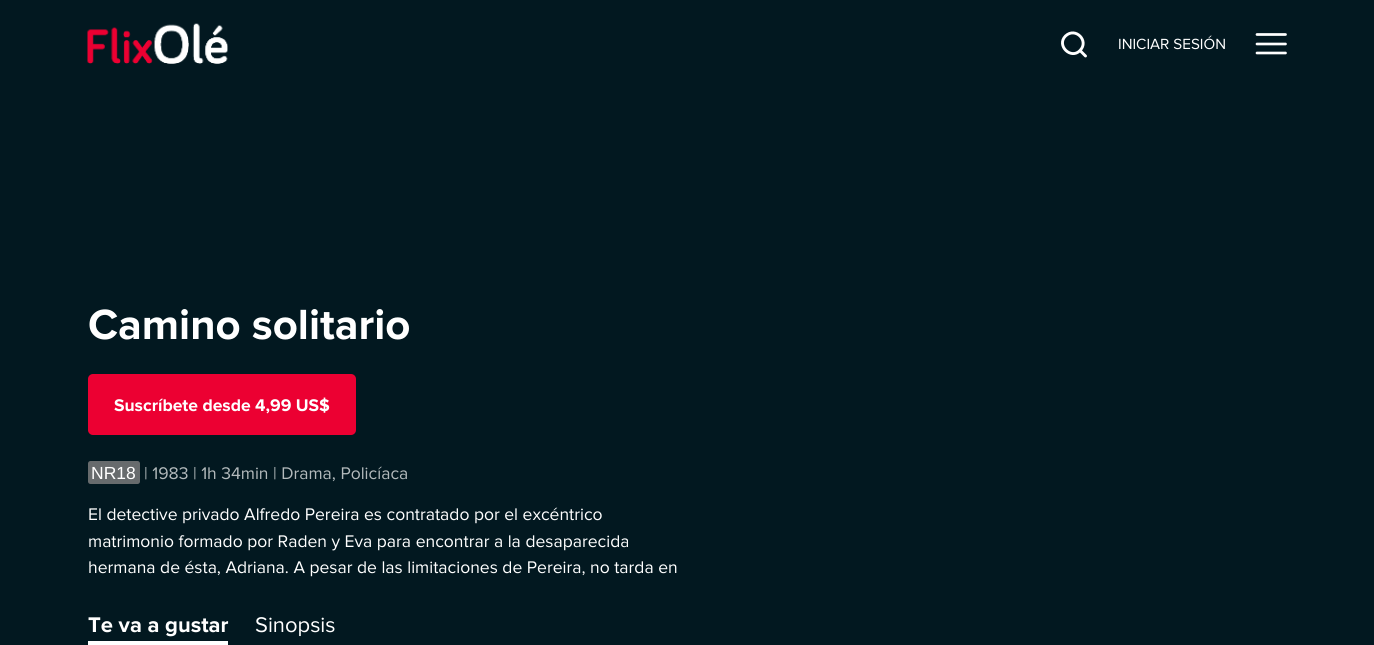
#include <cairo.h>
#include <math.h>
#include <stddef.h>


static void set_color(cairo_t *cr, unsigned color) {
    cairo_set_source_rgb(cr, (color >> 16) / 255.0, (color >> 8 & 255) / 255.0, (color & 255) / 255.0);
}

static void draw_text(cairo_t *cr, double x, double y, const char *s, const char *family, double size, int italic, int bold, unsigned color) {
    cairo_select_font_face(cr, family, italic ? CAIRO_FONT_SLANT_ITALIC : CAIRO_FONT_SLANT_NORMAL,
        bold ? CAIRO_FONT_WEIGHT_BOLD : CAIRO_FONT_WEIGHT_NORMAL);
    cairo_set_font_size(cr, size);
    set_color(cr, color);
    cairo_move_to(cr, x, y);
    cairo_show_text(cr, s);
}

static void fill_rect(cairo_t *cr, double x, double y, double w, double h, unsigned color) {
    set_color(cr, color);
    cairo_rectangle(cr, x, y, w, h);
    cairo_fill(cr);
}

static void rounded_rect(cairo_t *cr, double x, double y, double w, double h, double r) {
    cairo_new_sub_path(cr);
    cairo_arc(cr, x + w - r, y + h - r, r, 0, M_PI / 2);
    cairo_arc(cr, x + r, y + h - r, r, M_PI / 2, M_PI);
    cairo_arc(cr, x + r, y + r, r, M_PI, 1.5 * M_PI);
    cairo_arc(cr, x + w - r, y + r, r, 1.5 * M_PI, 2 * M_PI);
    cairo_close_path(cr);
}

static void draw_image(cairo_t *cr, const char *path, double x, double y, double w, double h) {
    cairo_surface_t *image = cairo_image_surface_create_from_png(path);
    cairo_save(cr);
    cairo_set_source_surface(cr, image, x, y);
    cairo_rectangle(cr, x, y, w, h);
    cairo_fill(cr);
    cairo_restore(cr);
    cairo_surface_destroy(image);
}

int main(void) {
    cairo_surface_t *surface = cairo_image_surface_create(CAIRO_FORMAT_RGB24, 1374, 645);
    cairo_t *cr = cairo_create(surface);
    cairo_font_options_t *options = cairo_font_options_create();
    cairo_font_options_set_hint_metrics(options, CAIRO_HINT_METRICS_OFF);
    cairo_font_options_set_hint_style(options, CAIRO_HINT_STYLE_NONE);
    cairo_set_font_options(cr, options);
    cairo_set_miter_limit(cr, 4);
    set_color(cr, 0x021820);
    cairo_paint(cr);
    draw_image(cr, "assets/img1.png", 87, 23, 141, 41);
    cairo_new_path(cr);
    cairo_move_to(cr, 1085.5, 56);
    cairo_line_to(cr, 1080, 50.5);
    cairo_move_to(cr, 1080, 50.5);
    cairo_curve_to(cr, 1089.5, 41, 1075.5, 26.5, 1065.5, 36);
    cairo_curve_to(cr, 1056, 45.5, 1071, 60, 1080, 50.5);
    cairo_close_path(cr);
    set_color(cr, 0xFFFFFF);
    cairo_set_line_width(cr, 2.9);
    cairo_set_line_cap(cr, CAIRO_LINE_CAP_ROUND);
    cairo_set_line_join(cr, CAIRO_LINE_JOIN_ROUND);
    cairo_stroke(cr);
    draw_text(cr, 1118, 49, "INICIAR SESIÓN", "Proxima Nova", 15.25, 0, 0, 0xFFFFFF);
    cairo_new_path(cr);
    cairo_move_to(cr, 1257, 34.5);
    cairo_line_to(cr, 1285.5, 34.5);
    cairo_move_to(cr, 1257, 44);
    cairo_line_to(cr, 1285.5, 44);
    cairo_move_to(cr, 1257, 53);
    cairo_line_to(cr, 1285.5, 53);
    cairo_set_line_width(cr, 2.7);
    cairo_set_line_join(cr, CAIRO_LINE_JOIN_MITER);
    cairo_stroke(cr);
    draw_text(cr, 88, 339, "Camino solitario", "Proxima Nova", 43.75, 0, 1, 0xFFFFFF);
    set_color(cr, 0xEC0032);
    rounded_rect(cr, 88, 374, 268, 61, 5);
    cairo_fill(cr);
    draw_text(cr, 114, 411, "Suscríbete desde 4,99 US$", "Proxima Nova", 17.5, 0, 1, 0xFFFFFF);
    set_color(cr, 0x676B6D);
    rounded_rect(cr, 88, 461, 52, 23, 2.5);
    cairo_fill(cr);
    draw_text(cr, 91, 479, "NR18", "Liberation Sans", 17.5, 0, 0, 0xFFFFFF);
    draw_text(cr, 144, 479, "| 1983 | 1h 34min | Drama, Policíaca", "Proxima Nova", 17.5, 0, 0, 0xB3BABC);
    draw_text(cr, 88, 520, "El detective privado Alfredo Pereira es contratado por el excéntrico", "Proxima Nova", 17.5, 0, 0, 0xFFFFFF);
    draw_text(cr, 88, 547, "matrimonio formado por Raden y Eva para encontrar a la desaparecida", "Proxima Nova", 17.5, 0, 0, 0xFFFFFF);
    draw_text(cr, 88, 573, "hermana de ésta, Adriana. A pesar de las limitaciones de Pereira, no tarda en", "Proxima Nova", 17.5, 0, 0, 0xFFFFFF);
    fill_rect(cr, 88, 641, 140, 4, 0xFFFFFF);
    draw_text(cr, 88, 632, "Te va a gustar", "Proxima Nova", 22, 0, 1, 0xFFFFFF);
    draw_text(cr, 255, 632, "Sinopsis", "Proxima Nova", 22, 0, 0, 0xFFFFFF);
    cairo_surface_write_to_png(surface, "output.png");
    cairo_font_options_destroy(options);
    cairo_destroy(cr);
    cairo_surface_destroy(surface);
    return 0;
}
